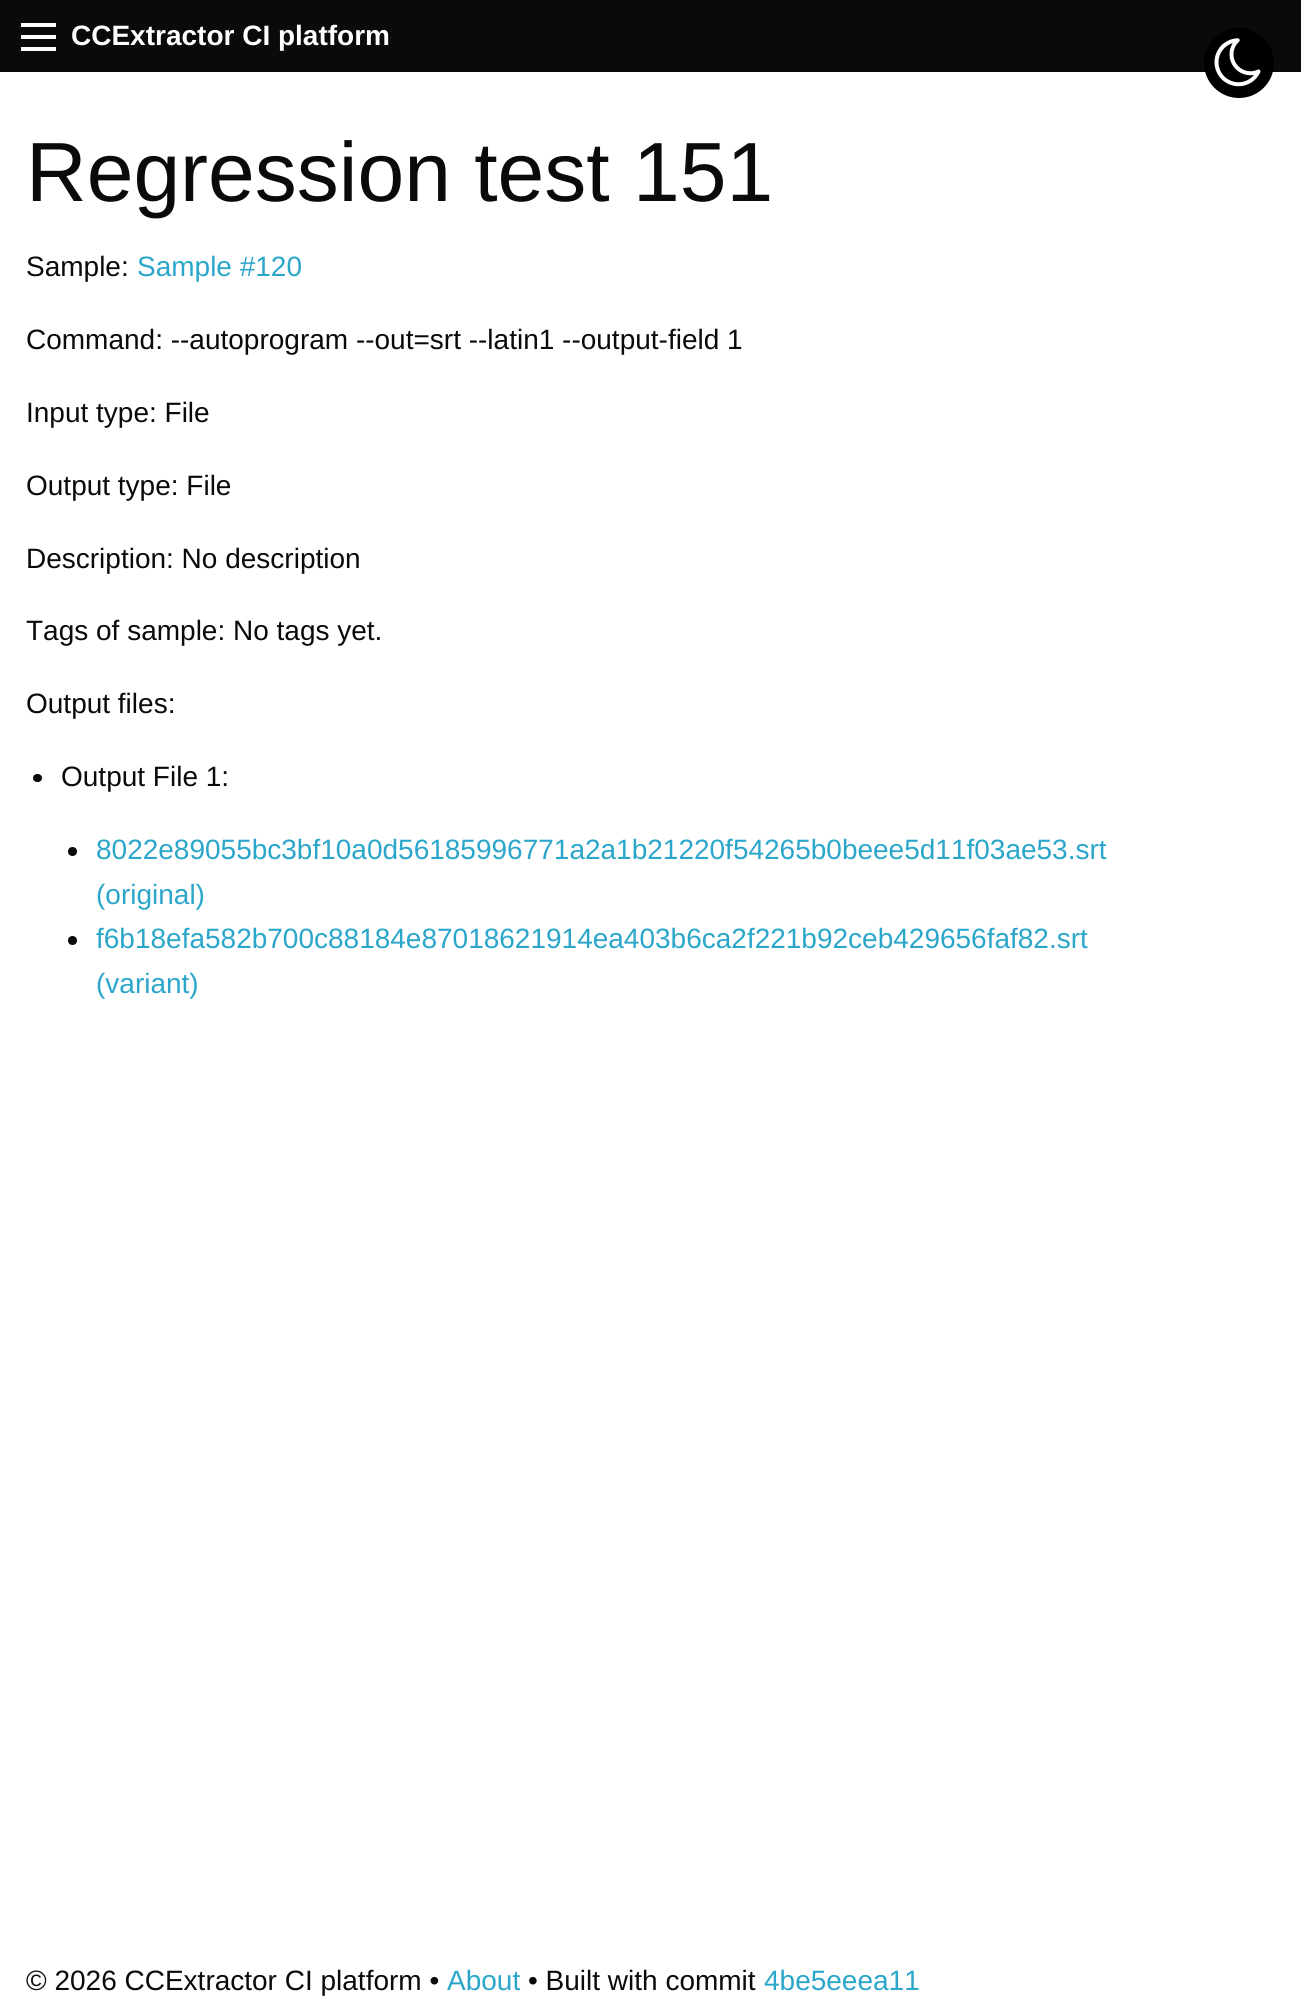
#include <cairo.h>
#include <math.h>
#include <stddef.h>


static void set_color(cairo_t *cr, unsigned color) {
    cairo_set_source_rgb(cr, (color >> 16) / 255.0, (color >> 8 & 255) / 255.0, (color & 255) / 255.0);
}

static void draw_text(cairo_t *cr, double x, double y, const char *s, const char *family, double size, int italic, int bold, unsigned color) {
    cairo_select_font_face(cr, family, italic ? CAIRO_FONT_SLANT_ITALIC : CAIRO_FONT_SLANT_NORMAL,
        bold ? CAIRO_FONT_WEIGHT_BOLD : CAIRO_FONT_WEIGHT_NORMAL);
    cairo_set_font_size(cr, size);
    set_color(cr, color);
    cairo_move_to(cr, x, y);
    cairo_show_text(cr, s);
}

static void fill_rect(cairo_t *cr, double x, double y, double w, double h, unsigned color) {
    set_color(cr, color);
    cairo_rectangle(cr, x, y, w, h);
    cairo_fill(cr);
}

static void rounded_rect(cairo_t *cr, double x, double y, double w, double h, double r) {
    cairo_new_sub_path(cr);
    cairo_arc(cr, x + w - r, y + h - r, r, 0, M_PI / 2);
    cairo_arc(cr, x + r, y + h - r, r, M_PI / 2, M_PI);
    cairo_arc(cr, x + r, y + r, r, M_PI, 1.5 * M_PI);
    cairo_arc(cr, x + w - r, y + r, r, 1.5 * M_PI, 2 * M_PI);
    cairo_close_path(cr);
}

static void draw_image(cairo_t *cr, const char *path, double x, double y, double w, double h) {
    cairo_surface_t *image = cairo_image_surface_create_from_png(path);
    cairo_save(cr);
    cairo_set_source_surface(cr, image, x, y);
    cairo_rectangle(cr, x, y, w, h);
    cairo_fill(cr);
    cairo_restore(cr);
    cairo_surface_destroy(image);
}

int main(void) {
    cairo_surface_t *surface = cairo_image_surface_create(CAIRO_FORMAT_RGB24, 1301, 2008);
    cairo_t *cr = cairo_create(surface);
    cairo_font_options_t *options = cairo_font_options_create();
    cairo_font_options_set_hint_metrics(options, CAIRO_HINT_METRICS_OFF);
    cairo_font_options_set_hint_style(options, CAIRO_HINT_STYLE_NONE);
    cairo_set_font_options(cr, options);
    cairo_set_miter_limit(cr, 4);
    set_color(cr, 0xFFFFFF);
    cairo_paint(cr);
    fill_rect(cr, 0, 0, 1301, 72, 0x0A0A0A);
    fill_rect(cr, 21, 47, 35, 4, 0xFEFEFE);
    fill_rect(cr, 21, 35, 35, 4, 0xFEFEFE);
    fill_rect(cr, 21, 23, 35, 4, 0xFEFEFE);
    draw_text(cr, 71, 45, "CCExtractor CI platform", "Liberation Sans", 28, 0, 1, 0xFEFEFE);
    set_color(cr, 0x000000);
    cairo_new_path(cr);
    cairo_arc(cr, 1239, 63, 35, 0, 2 * M_PI);
    cairo_fill(cr);
    draw_image(cr, "assets/img1.png", 1214, 38, 47, 49);
    draw_text(cr, 26, 201, "Regression test 151", "Liberation Sans", 84, 0, 0, 0x0A0A0A);
    draw_text(cr, 26, 276, "Sample:", "Liberation Sans", 28, 0, 0, 0x0A0A0A);
    draw_text(cr, 137, 276, "Sample #120", "Liberation Sans", 28, 0, 0, 0x2BA6CB);
    draw_text(cr, 26, 349, "Command: --autoprogram --out=srt --latin1 --output-field 1", "Liberation Sans", 28, 0, 0, 0x0A0A0A);
    draw_text(cr, 26, 422, "Input type: File", "Liberation Sans", 28, 0, 0, 0x0A0A0A);
    draw_text(cr, 26, 495, "Output type: File", "Liberation Sans", 28, 0, 0, 0x0A0A0A);
    draw_text(cr, 26, 568, "Description: No description", "Liberation Sans", 28, 0, 0, 0x0A0A0A);
    draw_text(cr, 26, 640, "Tags of sample: No tags yet.", "Liberation Sans", 28, 0, 0, 0x0A0A0A);
    draw_text(cr, 26, 713, "Output files:", "Liberation Sans", 28, 0, 0, 0x0A0A0A);
    rounded_rect(cr, 33, 774, 9, 8, 4);
    cairo_fill(cr);
    draw_text(cr, 61, 786, "Output File 1:", "Liberation Sans", 28, 0, 0, 0x0A0A0A);
    cairo_new_path(cr);
    cairo_arc(cr, 72.5, 851.5, 4.5, 0, 2 * M_PI);
    cairo_fill(cr);
    draw_text(cr, 96, 859, "8022e89055bc3bf10a0d56185996771a2a1b21220f54265b0beee5d11f03ae53.srt", "Liberation Sans", 28, 0, 0, 0x2BA6CB);
    draw_text(cr, 96, 904, "(original)", "Liberation Sans", 28, 0, 0, 0x2BA6CB);
    set_color(cr, 0x0A0A0A);
    cairo_new_path(cr);
    cairo_arc(cr, 72.5, 940.5, 4.5, 0, 2 * M_PI);
    cairo_fill(cr);
    draw_text(cr, 96, 948, "f6b18efa582b700c88184e87018621914ea403b6ca2f221b92ceb429656faf82.srt", "Liberation Sans", 28, 0, 0, 0x2BA6CB);
    draw_text(cr, 96, 993, "(variant)", "Liberation Sans", 28, 0, 0, 0x2BA6CB);
    draw_text(cr, 26, 1990, "© 2026 CCExtractor CI platform •", "Liberation Sans", 28, 0, 0, 0x0A0A0A);
    draw_text(cr, 447, 1990, "About", "Liberation Sans", 28, 0, 0, 0x2BA6CB);
    draw_text(cr, 528, 1990, "• Built with commit", "Liberation Sans", 28, 0, 0, 0x0A0A0A);
    draw_text(cr, 764, 1990, "4be5eeea11", "Liberation Sans", 28, 0, 0, 0x2BA6CB);
    cairo_surface_write_to_png(surface, "output.png");
    cairo_font_options_destroy(options);
    cairo_destroy(cr);
    cairo_surface_destroy(surface);
    return 0;
}
